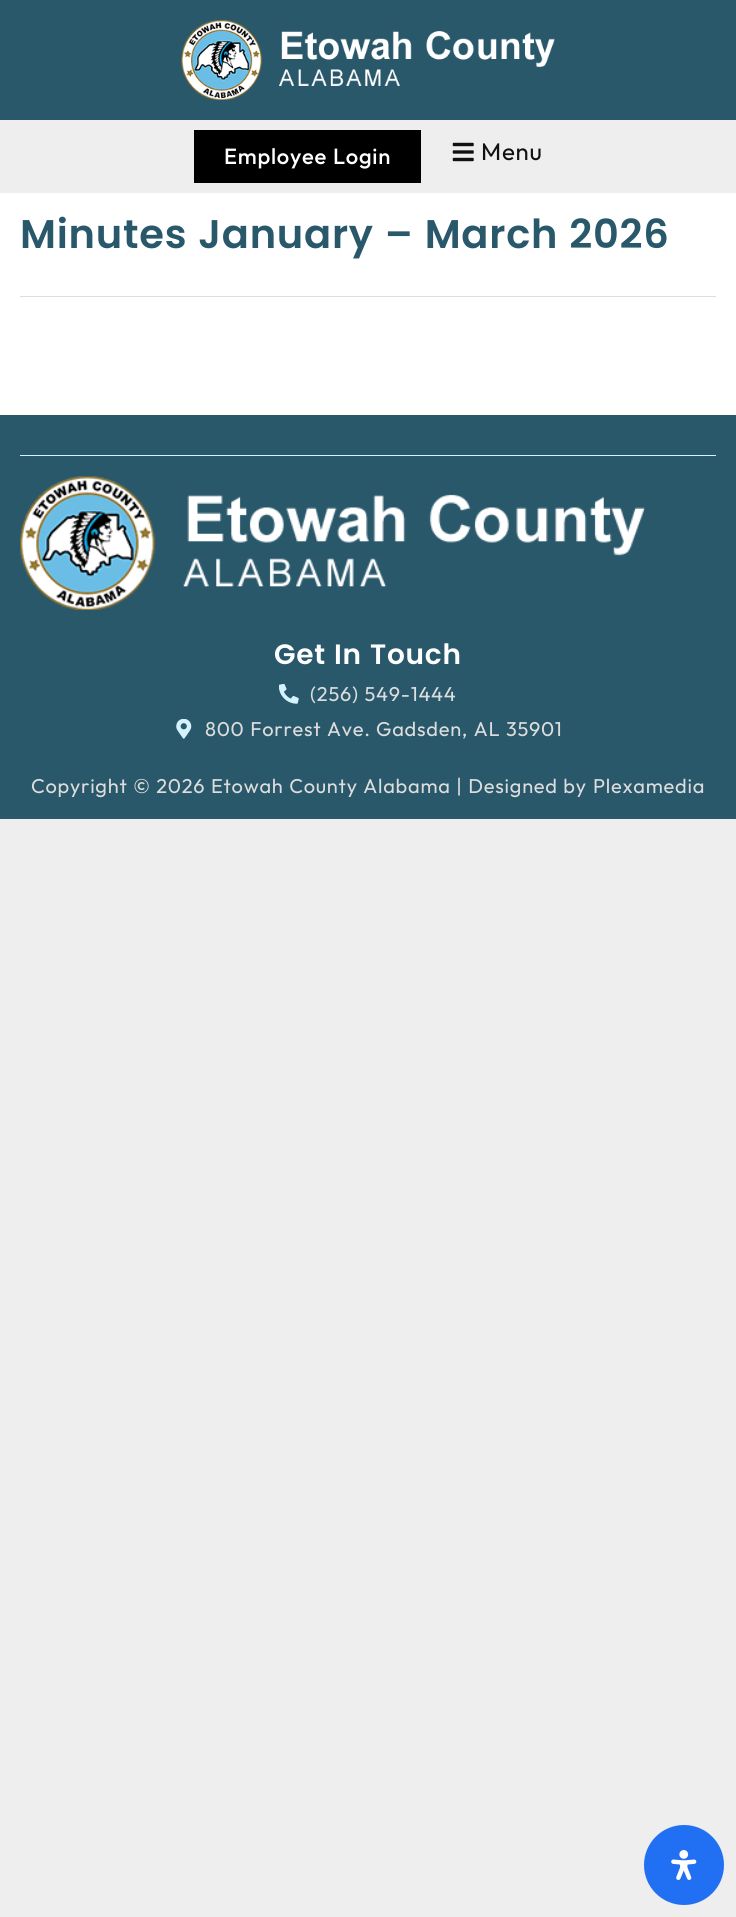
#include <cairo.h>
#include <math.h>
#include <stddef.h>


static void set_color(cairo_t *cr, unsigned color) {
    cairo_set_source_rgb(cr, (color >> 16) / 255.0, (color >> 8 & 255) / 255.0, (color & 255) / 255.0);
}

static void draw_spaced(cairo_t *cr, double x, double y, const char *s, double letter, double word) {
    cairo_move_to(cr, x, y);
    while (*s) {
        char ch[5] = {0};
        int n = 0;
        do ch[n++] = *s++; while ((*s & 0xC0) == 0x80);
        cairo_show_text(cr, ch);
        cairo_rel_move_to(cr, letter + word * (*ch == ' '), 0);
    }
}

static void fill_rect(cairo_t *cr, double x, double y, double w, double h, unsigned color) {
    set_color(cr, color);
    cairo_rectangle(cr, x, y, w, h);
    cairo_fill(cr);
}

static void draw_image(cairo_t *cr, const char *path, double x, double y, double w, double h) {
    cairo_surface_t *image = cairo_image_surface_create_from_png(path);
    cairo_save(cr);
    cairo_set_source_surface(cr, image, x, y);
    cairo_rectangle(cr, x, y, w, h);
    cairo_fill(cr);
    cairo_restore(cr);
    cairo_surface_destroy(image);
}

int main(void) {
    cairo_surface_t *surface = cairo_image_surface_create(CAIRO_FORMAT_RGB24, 736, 1917);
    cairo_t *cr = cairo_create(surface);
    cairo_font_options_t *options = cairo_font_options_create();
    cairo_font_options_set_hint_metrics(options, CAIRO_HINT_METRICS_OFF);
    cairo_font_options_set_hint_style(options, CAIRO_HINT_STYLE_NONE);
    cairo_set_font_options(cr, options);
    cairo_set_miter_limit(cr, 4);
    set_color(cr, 0xEEEEEE);
    cairo_paint(cr);
    fill_rect(cr, 0, 0, 736, 120, 0x29586B);
    draw_image(cr, "assets/img1.png", 181, 20, 374, 80);
    fill_rect(cr, 194, 130, 227, 53, 0x000000);
    cairo_select_font_face(cr, "Outfit Medium", CAIRO_FONT_SLANT_NORMAL, CAIRO_FONT_WEIGHT_NORMAL);
    cairo_set_font_size(cr, 22);
    set_color(cr, 0xFFFFFF);
    draw_spaced(cr, 224, 164, "Employee Login", 0.75, 0.75);
    draw_image(cr, "assets/img2.png", 452, 142, 22, 20);
    cairo_select_font_face(cr, "Outfit", CAIRO_FONT_SLANT_NORMAL, CAIRO_FONT_WEIGHT_NORMAL);
    cairo_set_font_size(cr, 24);
    set_color(cr, 0x111111);
    draw_spaced(cr, 481, 160, "Menu", 0.75, 0);
    fill_rect(cr, 0, 193, 736, 222, 0xFFFFFF);
    cairo_select_font_face(cr, "Poppins SemiBold", CAIRO_FONT_SLANT_NORMAL, CAIRO_FONT_WEIGHT_NORMAL);
    cairo_set_font_size(cr, 40);
    set_color(cr, 0x29586B);
    draw_spaced(cr, 20, 248, "Minutes January – March 2026", 0.75, 0.75);
    fill_rect(cr, 20, 296, 696, 1, 0xDDDDDD);
    fill_rect(cr, 0, 415, 736, 404, 0x29586B);
    fill_rect(cr, 20, 455, 696, 1, 0xD4F3FF);
    draw_image(cr, "assets/img3.png", 20, 476, 625, 134);
    cairo_set_font_size(cr, 28);
    set_color(cr, 0xFFFFFF);
    draw_spaced(cr, 274, 664, "Get In Touch", 0.75, 0.75);
    draw_image(cr, "assets/img4.png", 279, 684, 20, 20);
    cairo_select_font_face(cr, "Outfit", CAIRO_FONT_SLANT_NORMAL, CAIRO_FONT_WEIGHT_NORMAL);
    cairo_set_font_size(cr, 20);
    set_color(cr, 0xDDDDDD);
    draw_spaced(cr, 310, 701, "(256) 549-1444", 0.75, 0.75);
    draw_image(cr, "assets/img5.png", 176, 719, 16, 20);
    draw_spaced(cr, 205, 736, "800 Forrest Ave.", 0.75, 0.75);
    draw_spaced(cr, 376, 736, "Gadsden, AL 35901", 0.75, 0.75);
    draw_spaced(cr, 31, 793, "Copyright © 2026 Etowah County Alabama | Designed by", 0.75, 0.75);
    draw_spaced(cr, 593, 793, "Plexamedia", 0.75, 0);
    set_color(cr, 0x216FF3);
    cairo_new_path(cr);
    cairo_arc(cr, 684, 1865, 40, 0, 2 * M_PI);
    cairo_fill(cr);
    draw_image(cr, "assets/img6.png", 671, 1850, 26, 30);
    cairo_surface_write_to_png(surface, "output.png");
    cairo_font_options_destroy(options);
    cairo_destroy(cr);
    cairo_surface_destroy(surface);
    return 0;
}
